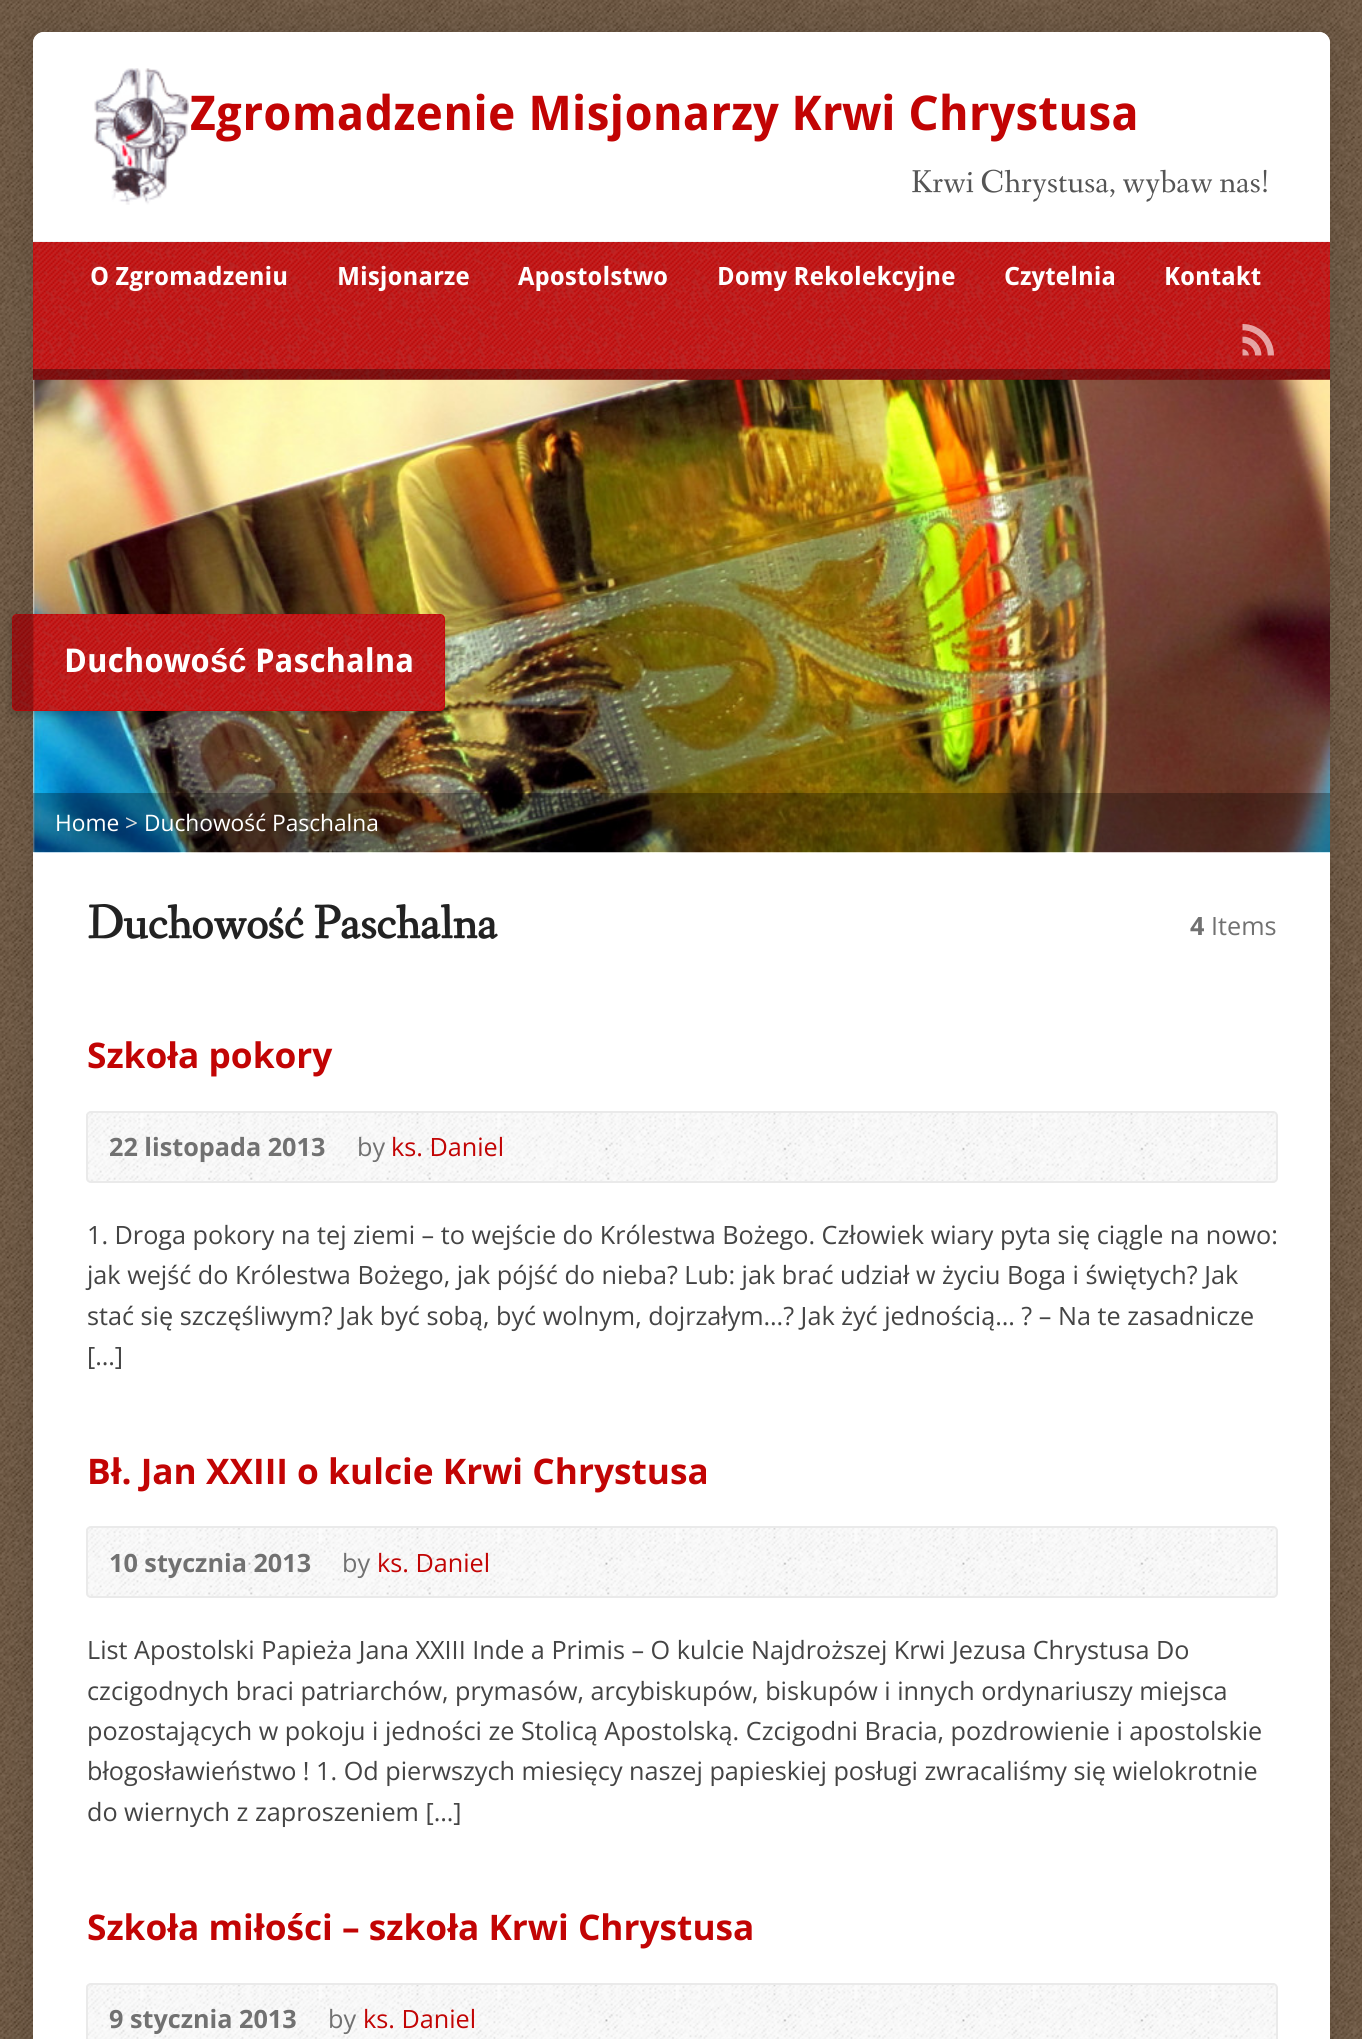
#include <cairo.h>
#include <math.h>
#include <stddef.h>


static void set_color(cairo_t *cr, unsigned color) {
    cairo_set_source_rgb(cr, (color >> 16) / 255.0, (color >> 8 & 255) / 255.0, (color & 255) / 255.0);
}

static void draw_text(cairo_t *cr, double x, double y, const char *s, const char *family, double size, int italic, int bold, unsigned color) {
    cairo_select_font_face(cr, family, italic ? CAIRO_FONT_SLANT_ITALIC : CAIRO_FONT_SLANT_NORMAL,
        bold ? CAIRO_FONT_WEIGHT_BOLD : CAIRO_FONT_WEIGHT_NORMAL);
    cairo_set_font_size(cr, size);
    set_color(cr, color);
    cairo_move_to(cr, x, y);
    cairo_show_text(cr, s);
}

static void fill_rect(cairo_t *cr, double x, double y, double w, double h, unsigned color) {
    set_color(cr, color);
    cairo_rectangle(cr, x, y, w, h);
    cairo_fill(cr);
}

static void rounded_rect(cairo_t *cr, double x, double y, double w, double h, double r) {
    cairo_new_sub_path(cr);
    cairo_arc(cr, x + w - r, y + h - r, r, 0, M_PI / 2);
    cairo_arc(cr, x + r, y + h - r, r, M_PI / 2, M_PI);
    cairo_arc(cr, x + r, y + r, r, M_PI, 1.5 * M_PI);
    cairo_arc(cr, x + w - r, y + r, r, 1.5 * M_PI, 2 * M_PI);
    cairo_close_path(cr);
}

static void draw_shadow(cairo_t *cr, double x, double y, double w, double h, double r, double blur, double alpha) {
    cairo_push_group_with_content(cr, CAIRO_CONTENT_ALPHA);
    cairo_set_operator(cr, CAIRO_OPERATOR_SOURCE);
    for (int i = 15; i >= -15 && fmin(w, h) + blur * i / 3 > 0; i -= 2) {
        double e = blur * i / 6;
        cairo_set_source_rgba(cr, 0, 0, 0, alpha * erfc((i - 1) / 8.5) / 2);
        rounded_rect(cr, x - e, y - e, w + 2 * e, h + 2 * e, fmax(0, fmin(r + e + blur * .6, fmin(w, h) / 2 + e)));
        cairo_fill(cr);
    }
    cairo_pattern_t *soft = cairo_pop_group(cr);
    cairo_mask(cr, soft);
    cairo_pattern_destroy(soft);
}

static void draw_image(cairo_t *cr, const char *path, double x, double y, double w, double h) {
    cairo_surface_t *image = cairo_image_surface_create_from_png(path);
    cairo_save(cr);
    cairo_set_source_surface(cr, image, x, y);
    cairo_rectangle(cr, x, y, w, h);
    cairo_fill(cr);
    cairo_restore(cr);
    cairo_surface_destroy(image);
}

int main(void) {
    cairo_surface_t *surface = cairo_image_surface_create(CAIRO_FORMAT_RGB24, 1362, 2039);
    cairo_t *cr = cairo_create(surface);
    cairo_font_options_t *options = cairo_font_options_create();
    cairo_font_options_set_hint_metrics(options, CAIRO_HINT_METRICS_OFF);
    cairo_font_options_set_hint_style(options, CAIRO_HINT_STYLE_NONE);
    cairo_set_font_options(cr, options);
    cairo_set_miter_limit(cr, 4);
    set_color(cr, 0x422000);
    cairo_paint(cr);
    draw_image(cr, "assets/img1.png", 0, 0, 1362, 2039);
    set_color(cr, 0x000000);
    draw_shadow(cr, 33, 32, 1297, 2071, 11, 17.5, 0.12);
    set_color(cr, 0xFFFFFF);
    rounded_rect(cr, 33, 32, 1297, 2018, 11);
    cairo_fill(cr);
    rounded_rect(cr, 33, 32, 1297, 210, 11);
    cairo_fill(cr);
    draw_image(cr, "assets/img2.png", 94, 68, 95, 137);
    draw_text(cr, 190, 130, "Zgromadzenie Misjonarzy Krwi Chrystusa", "Droid Sans", 47.9, 0, 1, 0xC20404);
    draw_text(cr, 911, 192, "Krwi Chrystusa, wybaw nas!", "Fanwood Text", 32.75, 0, 0, 0x555555);
    fill_rect(cr, 33, 242, 1297, 138, 0xCC0000);
    draw_image(cr, "assets/img3.png", 33, 241, 1297, 139);
    draw_text(cr, 90, 285, "O Zgromadzeniu", "Droid Sans", 25.2, 0, 1, 0xFFFFFF);
    draw_text(cr, 337, 285, "Misjonarze", "Droid Sans", 25.2, 0, 1, 0xFFFFFF);
    draw_text(cr, 518, 285, "Apostolstwo", "Droid Sans", 25.2, 0, 1, 0xFFFFFF);
    draw_text(cr, 717, 285, "Domy Rekolekcyjne", "Droid Sans", 25.2, 0, 1, 0xFFFFFF);
    draw_text(cr, 1004, 285, "Czytelnia", "Droid Sans", 25.2, 0, 1, 0xFFFFFF);
    draw_text(cr, 1164, 285, "Kontakt", "Droid Sans", 25.2, 0, 1, 0xFFFFFF);
    draw_image(cr, "assets/img4.png", 1242, 324, 32, 32);
    cairo_set_source_rgba(cr, 0, 0, 0, 0.35);
    cairo_rectangle(cr, 33, 369, 1297, 11);
    cairo_fill(cr);
    draw_image(cr, "assets/img5.png", 33, 379, 1297, 474);
    set_color(cr, 0x000000);
    draw_shadow(cr, 12, 618, 433, 96, 5, 4.5, 0.24);
    set_color(cr, 0xCC0000);
    rounded_rect(cr, 12, 614, 433, 97, 5);
    cairo_fill(cr);
    draw_image(cr, "assets/img6.png", 12, 614, 433, 97);
    draw_text(cr, 64, 672, "Duchowo", "Droid Sans", 32.75, 0, 1, 0xFFFFFF);
    draw_text(cr, 210, 672, "ść", "Liberation Sans", 32.75, 0, 1, 0xFFFFFF);
    draw_text(cr, 255, 672, "Paschalna", "Droid Sans", 32.75, 0, 1, 0xFFFFFF);
    cairo_set_source_rgba(cr, 0, 0, 0, 0.3);
    cairo_rectangle(cr, 33, 793, 1297, 59);
    cairo_fill(cr);
    draw_text(cr, 55, 831, "Home", "Open Sans", 22.75, 0, 0, 0xFFFFFF);
    draw_text(cr, 125, 831, ">", "Open Sans", 22.75, 0, 0, 0xDDDDDD);
    draw_text(cr, 144, 831, "Duchowość Paschalna", "Open Sans", 22.75, 0, 0, 0xFFFFFF);
    draw_text(cr, 87, 938, "Duchowość Paschalna", "Fanwood Text", 47.9, 0, 1, 0x222222);
    draw_text(cr, 1190, 935, "4", "Open Sans", 25.2, 0, 1, 0x717171);
    draw_text(cr, 1211, 935, "Items", "Open Sans", 25.2, 0, 0, 0x717171);
    draw_text(cr, 87, 1068, "Szkoła pokory", "Open Sans", 35.25, 0, 1, 0xC20404);
    draw_image(cr, "assets/img7.png", 86, 1111, 1191, 72);
    rounded_rect(cr, 87, 1112, 1190, 70, 4);
    set_color(cr, 0xEAEAEA);
    cairo_stroke(cr);
    draw_text(cr, 109, 1156, "22 listopada 2013", "Open Sans", 25.2, 0, 1, 0x717171);
    draw_text(cr, 357, 1156, "by", "Open Sans", 25.2, 0, 0, 0x717171);
    draw_text(cr, 391, 1156, "ks. Daniel", "Open Sans", 25.2, 0, 0, 0xC20404);
    draw_text(cr, 87, 1244, "1. Droga pokory na tej ziemi – to wejście do Królestwa Bożego. Człowiek wiary pyta się ciągle na nowo:", "Open Sans", 25.2, 0, 0, 0x444444);
    draw_text(cr, 87, 1284, "jak wejść do Królestwa Bożego, jak pójść do nieba? Lub: jak brać udział w życiu Boga i świętych? Jak", "Open Sans", 25.2, 0, 0, 0x444444);
    draw_text(cr, 87, 1325, "stać się szczęśliwym? Jak być sobą, być wolnym, dojrzałym…? Jak żyć jednością… ? – Na te zasadnicze", "Open Sans", 25.2, 0, 0, 0x444444);
    draw_text(cr, 87, 1365, "[…]", "Open Sans", 25.2, 0, 0, 0x444444);
    draw_text(cr, 87, 1484, "Bł. Jan XXIII o kulcie Krwi Chrystusa", "Open Sans", 35.25, 0, 1, 0xC20404);
    draw_image(cr, "assets/img8.png", 86, 1526, 1191, 72);
    rounded_rect(cr, 87, 1527, 1190, 70, 4);
    set_color(cr, 0xEAEAEA);
    cairo_stroke(cr);
    draw_text(cr, 109, 1572, "10 stycznia 2013", "Open Sans", 25.2, 0, 1, 0x717171);
    draw_text(cr, 342, 1572, "by", "Open Sans", 25.2, 0, 0, 0x717171);
    draw_text(cr, 377, 1572, "ks. Daniel", "Open Sans", 25.2, 0, 0, 0xC20404);
    draw_text(cr, 87, 1659, "List Apostolski Papieża Jana XXIII Inde a Primis – O kulcie Najdroższej Krwi Jezusa Chrystusa Do", "Open Sans", 25.2, 0, 0, 0x444444);
    draw_text(cr, 87, 1700, "czcigodnych braci patriarchów, prymasów, arcybiskupów, biskupów i innych ordynariuszy miejsca", "Open Sans", 25.2, 0, 0, 0x444444);
    draw_text(cr, 87, 1740, "pozostających w pokoju i jedności ze Stolicą Apostolską. Czcigodni Bracia, pozdrowienie i apostolskie", "Open Sans", 25.2, 0, 0, 0x444444);
    draw_text(cr, 87, 1780, "błogosławieństwo ! 1. Od pierwszych miesięcy naszej papieskiej posługi zwracaliśmy się wielokrotnie", "Open Sans", 25.2, 0, 0, 0x444444);
    draw_text(cr, 87, 1821, "do wiernych z zaproszeniem […]", "Open Sans", 25.2, 0, 0, 0x444444);
    draw_text(cr, 87, 1940, "Szkoła miłości – szkoła Krwi Chrystusa", "Open Sans", 35.25, 0, 1, 0xC20404);
    draw_image(cr, "assets/img9.png", 86, 1983, 1191, 56);
    rounded_rect(cr, 87, 1984, 1190, 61, 4);
    set_color(cr, 0xEAEAEA);
    cairo_stroke(cr);
    draw_text(cr, 109, 2028, "9 stycznia 2013", "Open Sans", 25.2, 0, 1, 0x717171);
    draw_text(cr, 328, 2028, "by", "Open Sans", 25.2, 0, 0, 0x717171);
    draw_text(cr, 363, 2028, "ks. Daniel", "Open Sans", 25.2, 0, 0, 0xC20404);
    cairo_surface_write_to_png(surface, "output.png");
    cairo_font_options_destroy(options);
    cairo_destroy(cr);
    cairo_surface_destroy(surface);
    return 0;
}
